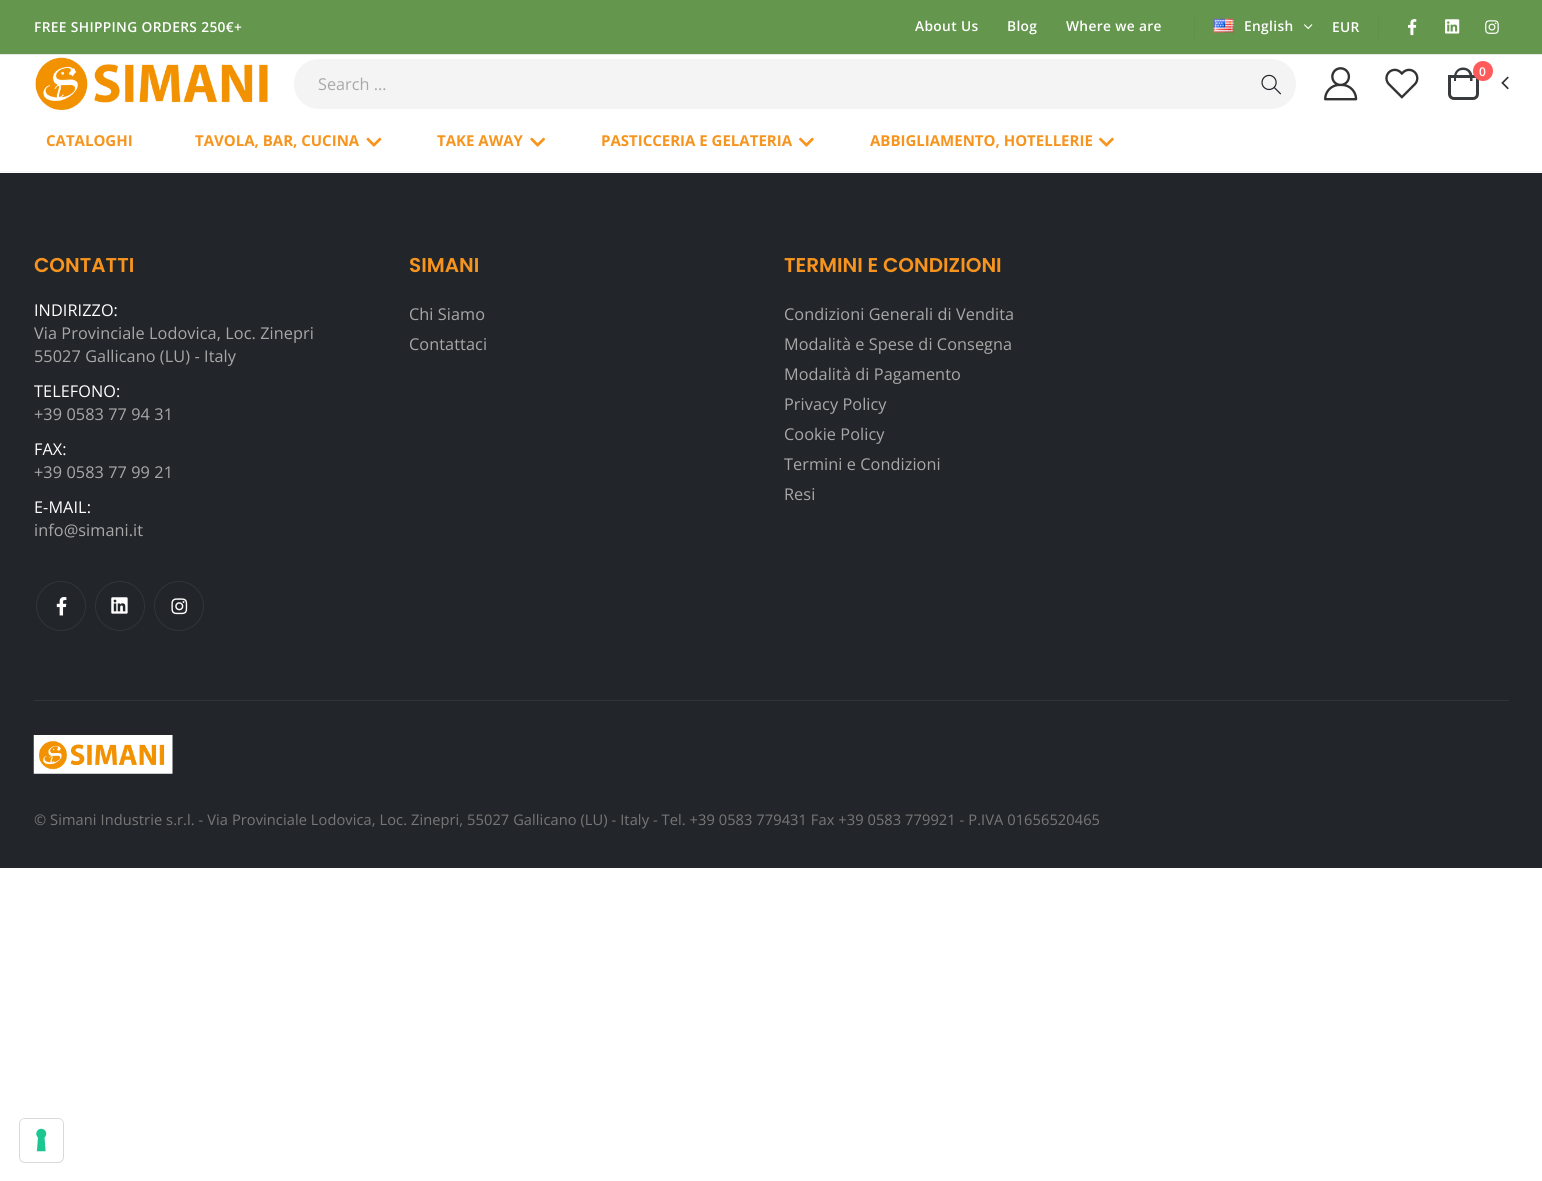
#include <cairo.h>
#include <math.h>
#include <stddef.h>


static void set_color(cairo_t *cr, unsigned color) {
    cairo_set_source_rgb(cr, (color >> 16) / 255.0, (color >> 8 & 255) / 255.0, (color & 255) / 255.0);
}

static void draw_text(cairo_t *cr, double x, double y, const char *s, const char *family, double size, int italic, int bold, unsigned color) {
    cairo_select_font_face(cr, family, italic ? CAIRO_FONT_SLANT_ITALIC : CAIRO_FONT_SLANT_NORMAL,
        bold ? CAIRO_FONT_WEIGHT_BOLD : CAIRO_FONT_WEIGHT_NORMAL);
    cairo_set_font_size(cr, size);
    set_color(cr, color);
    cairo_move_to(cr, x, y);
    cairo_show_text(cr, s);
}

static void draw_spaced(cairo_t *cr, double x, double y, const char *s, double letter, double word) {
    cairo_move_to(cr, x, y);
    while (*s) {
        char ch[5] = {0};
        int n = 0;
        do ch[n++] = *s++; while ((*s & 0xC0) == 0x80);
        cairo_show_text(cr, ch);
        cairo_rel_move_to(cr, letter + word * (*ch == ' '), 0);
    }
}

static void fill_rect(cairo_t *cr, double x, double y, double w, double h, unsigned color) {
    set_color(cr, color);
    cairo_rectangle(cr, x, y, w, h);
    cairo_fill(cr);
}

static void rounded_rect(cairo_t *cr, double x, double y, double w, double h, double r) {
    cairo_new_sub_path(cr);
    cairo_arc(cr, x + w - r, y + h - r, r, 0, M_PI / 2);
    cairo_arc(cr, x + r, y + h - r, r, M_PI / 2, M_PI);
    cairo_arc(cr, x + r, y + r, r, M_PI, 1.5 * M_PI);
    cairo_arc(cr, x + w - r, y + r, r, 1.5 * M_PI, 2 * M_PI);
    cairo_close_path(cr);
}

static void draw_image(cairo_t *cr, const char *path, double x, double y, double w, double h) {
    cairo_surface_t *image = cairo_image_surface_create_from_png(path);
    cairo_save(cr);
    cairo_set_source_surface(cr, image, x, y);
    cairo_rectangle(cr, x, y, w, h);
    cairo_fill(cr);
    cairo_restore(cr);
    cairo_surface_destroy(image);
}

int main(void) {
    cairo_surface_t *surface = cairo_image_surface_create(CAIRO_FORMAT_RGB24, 1542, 1181);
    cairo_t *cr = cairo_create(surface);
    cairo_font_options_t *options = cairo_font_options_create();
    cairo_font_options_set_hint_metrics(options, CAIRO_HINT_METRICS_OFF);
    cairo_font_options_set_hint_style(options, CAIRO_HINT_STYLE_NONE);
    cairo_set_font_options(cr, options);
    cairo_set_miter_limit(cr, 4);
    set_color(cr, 0xFFFFFF);
    cairo_paint(cr);
    fill_rect(cr, 0, 171, 1542, 1, 0xF4F4F4);
    fill_rect(cr, 0, 0, 1542, 54, 0x64964D);
    cairo_select_font_face(cr, "Open Sans SemiBold", CAIRO_FONT_SLANT_NORMAL, CAIRO_FONT_WEIGHT_NORMAL);
    cairo_set_font_size(cr, 13.75);
    set_color(cr, 0xFFFFFF);
    draw_spaced(cr, 34, 32, "FREE SHIPPING ORDERS 250€+", 0.35, 0);
    draw_spaced(cr, 915, 31, "About Us", 0.35, 0);
    draw_spaced(cr, 1007, 31, "Blog", 0.35, 0);
    draw_spaced(cr, 1066, 31, "Where we are", 0.35, 0);
    fill_rect(cr, 1194, 14, 1, 25, 0x60904A);
    draw_image(cr, "assets/img1.png", 1213, 18, 21, 15);
    set_color(cr, 0xFFFFFF);
    draw_spaced(cr, 1244, 31, "English", 0.35, 0);
    draw_image(cr, "assets/img2.png", 1304, 24, 9, 6);
    draw_spaced(cr, 1332, 32, "EUR", 0.35, 0);
    fill_rect(cr, 1378, 14, 1, 25, 0x60904A);
    draw_image(cr, "assets/img3.png", 1408, 19, 9, 17);
    draw_image(cr, "assets/img4.png", 1445, 19, 15, 15);
    draw_image(cr, "assets/img5.png", 1485, 20, 14, 14);
    fill_rect(cr, 0, 54, 1542, 1, 0xE7E7E7);
    draw_image(cr, "assets/img6.png", 35, 57, 233, 53);
    set_color(cr, 0xF4F4F4);
    cairo_new_path(cr);
    cairo_move_to(cr, 319, 59);
    cairo_line_to(cr, 1246, 59);
    cairo_line_to(cr, 1246, 109);
    cairo_line_to(cr, 319, 109);
    cairo_curve_to(cr, 305, 109, 294, 98, 294, 84);
    cairo_curve_to(cr, 294, 70, 305, 59, 319, 59);
    cairo_close_path(cr);
    cairo_fill(cr);
    draw_text(cr, 318, 90, "Search ...", "Open Sans", 16.25, 0, 0, 0xA8A8A8);
    set_color(cr, 0xF4F4F4);
    cairo_new_path(cr);
    cairo_move_to(cr, 1246, 59);
    cairo_line_to(cr, 1271, 59);
    cairo_curve_to(cr, 1285, 59, 1296, 70, 1296, 84);
    cairo_curve_to(cr, 1296, 98, 1285, 109, 1271, 109);
    cairo_line_to(cr, 1246, 109);
    cairo_close_path(cr);
    cairo_fill(cr);
    draw_image(cr, "assets/img7.png", 1261, 74, 20, 21);
    draw_image(cr, "assets/img8.png", 1324, 67, 34, 34);
    draw_image(cr, "assets/img9.png", 1385, 68, 34, 31);
    cairo_new_path(cr);
    cairo_move_to(cr, 1449.5, 76.5);
    cairo_line_to(cr, 1477.5, 76.5);
    cairo_line_to(cr, 1477.5, 94);
    cairo_curve_to(cr, 1477.5, 96.5, 1475.5, 98.5, 1473, 98.5);
    cairo_line_to(cr, 1454, 98.5);
    cairo_curve_to(cr, 1451.5, 98.5, 1449.5, 96.5, 1449.5, 94);
    cairo_close_path(cr);
    set_color(cr, 0x383B3E);
    cairo_set_line_width(cr, 3);
    cairo_stroke(cr);
    cairo_set_fill_rule(cr, CAIRO_FILL_RULE_EVEN_ODD);
    cairo_new_path(cr);
    cairo_move_to(cr, 1463, 67.5);
    cairo_curve_to(cr, 1468.5, 67.5, 1472.5, 71.5, 1472.5, 77);
    cairo_line_to(cr, 1472.5, 81);
    cairo_line_to(cr, 1454, 81);
    cairo_line_to(cr, 1454, 77);
    cairo_curve_to(cr, 1454, 71.5, 1458, 67.5, 1463, 67.5);
    cairo_close_path(cr);
    cairo_move_to(cr, 1463, 70);
    cairo_curve_to(cr, 1470, 70, 1470, 76.5, 1470, 81);
    cairo_line_to(cr, 1456, 81);
    cairo_curve_to(cr, 1456, 76.5, 1456, 70, 1463, 70);
    cairo_close_path(cr);
    cairo_fill(cr);
    set_color(cr, 0xFF5B5B);
    cairo_arc(cr, 1483, 71, 10, 0, 2 * M_PI);
    cairo_fill(cr);
    draw_text(cr, 1479, 76, "0", "Open Sans SemiBold", 12, 0, 0, 0xFFFFFF);
    draw_image(cr, "assets/img10.png", 1501, 76, 8, 14);
    draw_text(cr, 46, 146, "CATALOGHI", "Open Sans", 15, 0, 1, 0xF7941E);
    draw_text(cr, 195, 146, "TAVOLA, BAR, CUCINA", "Open Sans", 15, 0, 1, 0xF7941E);
    draw_image(cr, "assets/img11.png", 366, 137, 16, 10);
    draw_text(cr, 437, 146, "TAKE AWAY", "Open Sans", 15, 0, 1, 0xF7941E);
    draw_image(cr, "assets/img12.png", 530, 137, 16, 10);
    draw_text(cr, 601, 146, "PASTICCERIA E GELATERIA", "Open Sans", 15, 0, 1, 0xF7941E);
    draw_image(cr, "assets/img13.png", 799, 137, 15, 10);
    draw_text(cr, 870, 146, "ABBIGLIAMENTO, HOTELLERIE", "Open Sans", 15, 0, 1, 0xF7941E);
    draw_image(cr, "assets/img13.png", 1099, 137, 15, 10);
    fill_rect(cr, 0, 173, 1542, 695, 0x222529);
    draw_text(cr, 34, 272, "CONTATTI", "Poppins SemiBold", 20, 0, 0, 0xF7941E);
    cairo_select_font_face(cr, "Open Sans", CAIRO_FONT_SLANT_NORMAL, CAIRO_FONT_WEIGHT_NORMAL);
    cairo_set_font_size(cr, 16.25);
    set_color(cr, 0xFFFFFF);
    draw_spaced(cr, 34, 316, "INDIRIZZO:", 0.08, 0);
    set_color(cr, 0xA8A8A8);
    draw_spaced(cr, 34, 339, "Via Provinciale Lodovica, Loc. Zinepri", 0.08, 0);
    draw_spaced(cr, 34, 362, "55027 Gallicano (LU) - Italy", 0.08, 0);
    set_color(cr, 0xFFFFFF);
    draw_spaced(cr, 34, 397, "TELEFONO:", 0.08, 0);
    set_color(cr, 0xA8A8A8);
    draw_spaced(cr, 34, 420, "+39 0583 77 94 31", 0.08, 0);
    set_color(cr, 0xFFFFFF);
    draw_spaced(cr, 34, 455, "FAX:", 0.08, 0);
    set_color(cr, 0xA8A8A8);
    draw_spaced(cr, 34, 478, "+39 0583 77 99 21", 0.08, 0);
    set_color(cr, 0xFFFFFF);
    draw_spaced(cr, 34, 513, "E-MAIL:", 0.08, 0);
    set_color(cr, 0xA8A8A8);
    draw_spaced(cr, 34, 536, "info@simani.it", 0.08, 0);
    cairo_new_path(cr);
    cairo_arc(cr, 61, 606, 24.5, 0, 2 * M_PI);
    set_color(cr, 0x313438);
    cairo_set_line_width(cr, 1);
    cairo_stroke(cr);
    draw_image(cr, "assets/img14.png", 56, 597, 11, 19);
    cairo_arc(cr, 120, 606, 24.5, 0, 2 * M_PI);
    cairo_stroke(cr);
    draw_image(cr, "assets/img15.png", 111, 597, 17, 17);
    cairo_arc(cr, 179, 606, 24.5, 0, 2 * M_PI);
    cairo_stroke(cr);
    draw_image(cr, "assets/img16.png", 171, 598, 17, 17);
    draw_text(cr, 409, 272, "SIMANI", "Poppins SemiBold", 20, 0, 0, 0xF7941E);
    cairo_select_font_face(cr, "Open Sans", CAIRO_FONT_SLANT_NORMAL, CAIRO_FONT_WEIGHT_NORMAL);
    cairo_set_font_size(cr, 16.25);
    set_color(cr, 0xA8A8A8);
    draw_spaced(cr, 409, 320, "Chi Siamo", 0.08, 0);
    draw_spaced(cr, 409, 350, "Contattaci", 0.08, 0);
    draw_text(cr, 784, 272, "TERMINI E CONDIZIONI", "Poppins SemiBold", 20, 0, 0, 0xF7941E);
    cairo_select_font_face(cr, "Open Sans", CAIRO_FONT_SLANT_NORMAL, CAIRO_FONT_WEIGHT_NORMAL);
    cairo_set_font_size(cr, 16.25);
    set_color(cr, 0xA8A8A8);
    draw_spaced(cr, 784, 320, "Condizioni Generali di Vendita", 0.08, 0);
    draw_spaced(cr, 784, 350, "Modalità e Spese di Consegna", 0.08, 0);
    draw_spaced(cr, 784, 380, "Modalità di Pagamento", 0.08, 0);
    draw_spaced(cr, 784, 410, "Privacy Policy", 0.08, 0);
    draw_spaced(cr, 784, 440, "Cookie Policy", 0.08, 0);
    draw_spaced(cr, 784, 470, "Termini e Condizioni", 0.08, 0);
    draw_spaced(cr, 784, 500, "Resi", 0.08, 0);
    fill_rect(cr, 34, 700, 1475, 1, 0x313438);
    draw_image(cr, "assets/img17.png", 33, 735, 140, 39);
    cairo_set_font_size(cr, 14.62);
    set_color(cr, 0x777777);
    draw_spaced(cr, 34, 825, "© Simani Industrie s.r.l. - Via Provinciale Lodovica, Loc. Zinepri, 55027 Gallicano (LU) - Italy - Tel. +39 0583 779431 Fax +39 0583 779921 - P.IVA 01656520465", 0.08, 0);
    rounded_rect(cr, 19.5, 1118.5, 44, 44, 5.5);
    set_color(cr, 0xD9D9D9);
    cairo_stroke(cr);
    set_color(cr, 0xFFFFFF);
    rounded_rect(cr, 20, 1119, 43, 42, 5);
    cairo_fill(cr);
    draw_image(cr, "assets/img18.png", 36, 1128, 11, 24);
    cairo_surface_write_to_png(surface, "output.png");
    cairo_font_options_destroy(options);
    cairo_destroy(cr);
    cairo_surface_destroy(surface);
    return 0;
}
